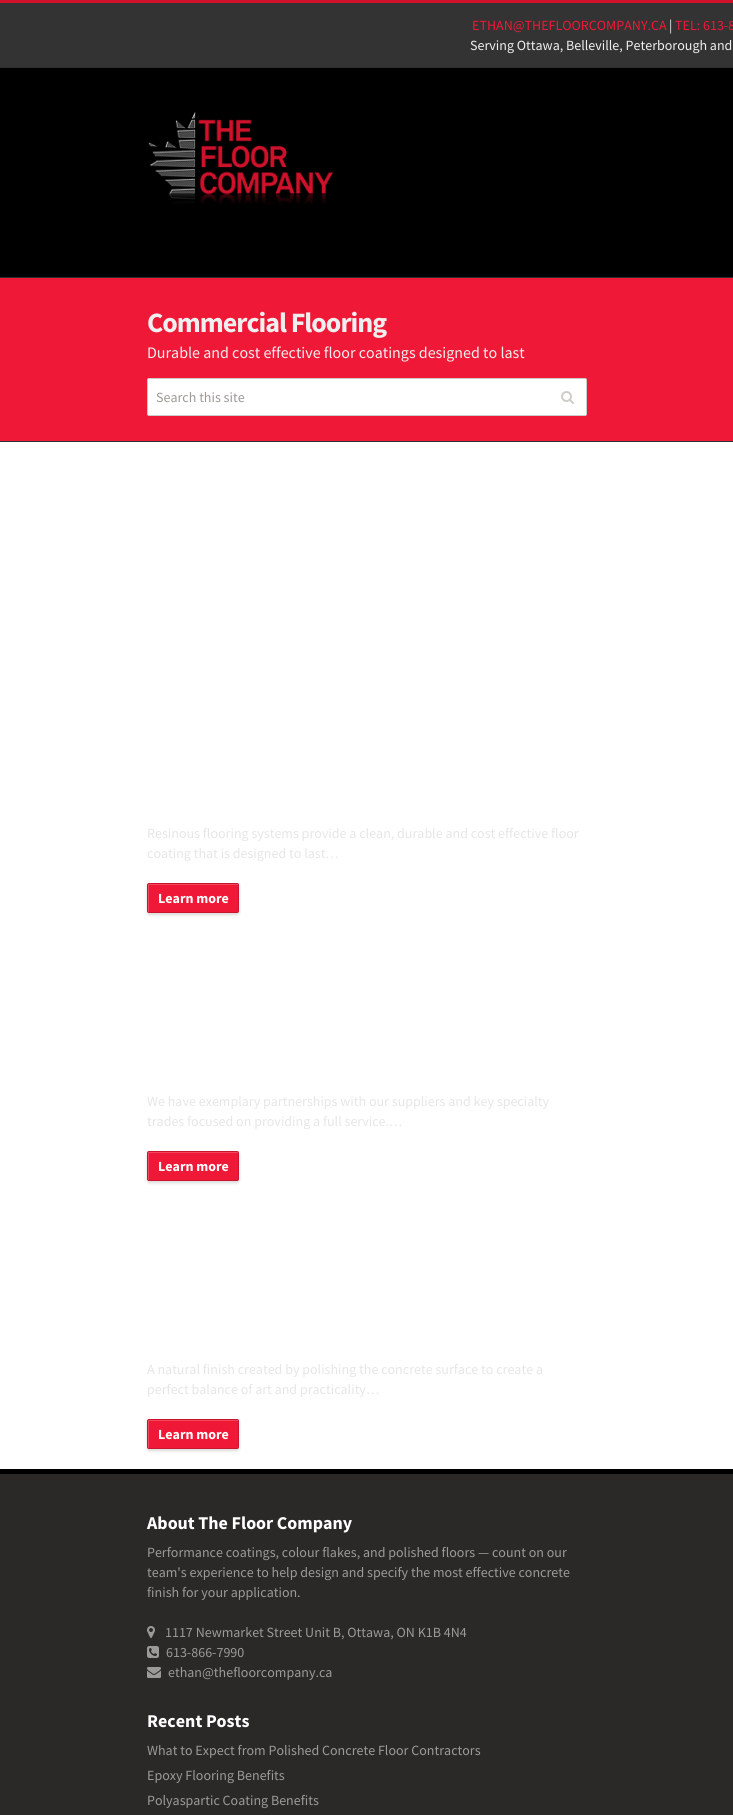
#include <cairo.h>
#include <math.h>
#include <stddef.h>


static void set_color(cairo_t *cr, unsigned color) {
    cairo_set_source_rgb(cr, (color >> 16) / 255.0, (color >> 8 & 255) / 255.0, (color & 255) / 255.0);
}

static void draw_text(cairo_t *cr, double x, double y, const char *s, const char *family, double size, int italic, int bold, unsigned color) {
    cairo_select_font_face(cr, family, italic ? CAIRO_FONT_SLANT_ITALIC : CAIRO_FONT_SLANT_NORMAL,
        bold ? CAIRO_FONT_WEIGHT_BOLD : CAIRO_FONT_WEIGHT_NORMAL);
    cairo_set_font_size(cr, size);
    set_color(cr, color);
    cairo_move_to(cr, x, y);
    cairo_show_text(cr, s);
}

static void draw_spaced(cairo_t *cr, double x, double y, const char *s, double letter, double word) {
    cairo_move_to(cr, x, y);
    while (*s) {
        char ch[5] = {0};
        int n = 0;
        do ch[n++] = *s++; while ((*s & 0xC0) == 0x80);
        cairo_show_text(cr, ch);
        cairo_rel_move_to(cr, letter + word * (*ch == ' '), 0);
    }
}

static void fill_rect(cairo_t *cr, double x, double y, double w, double h, unsigned color) {
    set_color(cr, color);
    cairo_rectangle(cr, x, y, w, h);
    cairo_fill(cr);
}

static void rounded_rect(cairo_t *cr, double x, double y, double w, double h, double r) {
    cairo_new_sub_path(cr);
    cairo_arc(cr, x + w - r, y + h - r, r, 0, M_PI / 2);
    cairo_arc(cr, x + r, y + h - r, r, M_PI / 2, M_PI);
    cairo_arc(cr, x + r, y + r, r, M_PI, 1.5 * M_PI);
    cairo_arc(cr, x + w - r, y + r, r, 1.5 * M_PI, 2 * M_PI);
    cairo_close_path(cr);
}

static void draw_shadow(cairo_t *cr, double x, double y, double w, double h, double r, double blur, double alpha) {
    cairo_push_group_with_content(cr, CAIRO_CONTENT_ALPHA);
    cairo_set_operator(cr, CAIRO_OPERATOR_SOURCE);
    for (int i = 15; i >= -15 && fmin(w, h) + blur * i / 3 > 0; i -= 2) {
        double e = blur * i / 6;
        cairo_set_source_rgba(cr, 0, 0, 0, alpha * erfc((i - 1) / 8.5) / 2);
        rounded_rect(cr, x - e, y - e, w + 2 * e, h + 2 * e, fmax(0, fmin(r + e + blur * .6, fmin(w, h) / 2 + e)));
        cairo_fill(cr);
    }
    cairo_pattern_t *soft = cairo_pop_group(cr);
    cairo_mask(cr, soft);
    cairo_pattern_destroy(soft);
}

static void draw_image(cairo_t *cr, const char *path, double x, double y, double w, double h) {
    cairo_surface_t *image = cairo_image_surface_create_from_png(path);
    cairo_save(cr);
    cairo_set_source_surface(cr, image, x, y);
    cairo_rectangle(cr, x, y, w, h);
    cairo_fill(cr);
    cairo_restore(cr);
    cairo_surface_destroy(image);
}

int main(void) {
    cairo_surface_t *surface = cairo_image_surface_create(CAIRO_FORMAT_RGB24, 733, 1815);
    cairo_t *cr = cairo_create(surface);
    cairo_font_options_t *options = cairo_font_options_create();
    cairo_font_options_set_hint_metrics(options, CAIRO_HINT_METRICS_OFF);
    cairo_font_options_set_hint_style(options, CAIRO_HINT_STYLE_NONE);
    cairo_set_font_options(cr, options);
    cairo_set_miter_limit(cr, 4);
    set_color(cr, 0xFFFFFF);
    cairo_paint(cr);
    fill_rect(cr, 0, 3, 733, 64, 0x333333);
    fill_rect(cr, 0, 0, 733, 3, 0xD0112B);
    fill_rect(cr, 0, 67, 733, 1, 0x2E2E2E);
    draw_text(cr, 472, 30, "ETHAN@THEFLOORCOMPANY.CA", "Source Sans Pro", 14, 0, 0, 0xEF1836);
    draw_text(cr, 669, 30, "|", "Source Sans Pro", 14, 0, 0, 0xEFEFEF);
    draw_text(cr, 675, 30, "TEL: 613-8", "Source Sans Pro", 14, 0, 0, 0xEF1836);
    draw_text(cr, 470, 50, "Serving Ottawa, Belleville, Peterborough and", "Source Sans Pro", 14, 0, 0, 0xEFEFEF);
    fill_rect(cr, 0, 68, 733, 209, 0x000000);
    draw_image(cr, "assets/img1.png", 148, 112, 185, 92);
    fill_rect(cr, 0, 278, 733, 163, 0xEF1836);
    fill_rect(cr, 0, 277, 733, 1, 0x2E2E2E);
    fill_rect(cr, 0, 441, 733, 1, 0x2E2E2E);
    cairo_select_font_face(cr, "Source Sans Pro", CAIRO_FONT_SLANT_NORMAL, CAIRO_FONT_WEIGHT_BOLD);
    cairo_set_font_size(cr, 28);
    set_color(cr, 0xEFEFEF);
    draw_spaced(cr, 147, 332, "Commercial Flooring", -1, 0);
    draw_text(cr, 147, 358, "Durable and cost effective floor coatings designed to last", "Source Sans Pro", 16, 0, 0, 0xEFEFEF);
    set_color(cr, 0xFFFFFF);
    rounded_rect(cr, 147.5, 378.5, 439, 37, 1.5);
    cairo_fill_preserve(cr);
    set_color(cr, 0xCCCCCC);
    cairo_set_line_width(cr, 1);
    cairo_stroke(cr);
    draw_text(cr, 156, 402, "Search this site", "Source Sans Pro", 14, 0, 0, 0x9C9A96);
    draw_image(cr, "assets/img2.png", 561, 391, 13, 13);
    draw_text(cr, 147, 838, "Resinous flooring systems provide a clean, durable and cost effective floor", "Source Sans Pro", 14, 0, 0, 0xE6E6E6);
    draw_text(cr, 147, 858, "coating that is designed to last…", "Source Sans Pro", 14, 0, 0, 0xE6E6E6);
    set_color(cr, 0x000000);
    draw_shadow(cr, 147, 885, 92, 30, 2, 1.5, 0.15);
    set_color(cr, 0xEF1836);
    rounded_rect(cr, 147, 883, 92, 30, 2);
    cairo_fill(cr);
    set_color(cr, 0xF2465E);
    cairo_new_path(cr);
    cairo_move_to(cr, 150, 885);
    cairo_line_to(cr, 238, 885);
    cairo_curve_to(cr, 238, 884, 238, 884, 237, 884);
    cairo_line_to(cr, 149, 884);
    cairo_curve_to(cr, 148, 884, 148, 884, 148, 885);
    cairo_line_to(cr, 148, 911);
    cairo_curve_to(cr, 148, 912, 148, 912, 149, 912);
    cairo_line_to(cr, 149, 885);
    cairo_close_path(cr);
    cairo_fill(cr);
    rounded_rect(cr, 147.5, 883.5, 91, 29, 1.5);
    cairo_set_source_rgba(cr, 0, 0, 0, 0.15);
    cairo_stroke(cr);
    draw_text(cr, 158, 903, "Learn more", "Source Sans Pro", 14, 0, 1, 0xFFFFFF);
    draw_text(cr, 147, 1106, "We have exemplary partnerships with our suppliers and key specialty", "Source Sans Pro", 14, 0, 0, 0xE6E6E6);
    draw_text(cr, 147, 1126, "trades focused on providing a full service.…", "Source Sans Pro", 14, 0, 0, 0xE6E6E6);
    set_color(cr, 0x000000);
    draw_shadow(cr, 147, 1153, 92, 30, 2, 1.5, 0.15);
    set_color(cr, 0xEF1836);
    rounded_rect(cr, 147, 1151, 92, 30, 2);
    cairo_fill(cr);
    set_color(cr, 0xF2465E);
    cairo_new_path(cr);
    cairo_move_to(cr, 150, 1153);
    cairo_line_to(cr, 238, 1153);
    cairo_curve_to(cr, 238, 1152, 238, 1152, 237, 1152);
    cairo_line_to(cr, 149, 1152);
    cairo_curve_to(cr, 148, 1152, 148, 1152, 148, 1153);
    cairo_line_to(cr, 148, 1179);
    cairo_curve_to(cr, 148, 1180, 148, 1180, 149, 1180);
    cairo_line_to(cr, 149, 1153);
    cairo_close_path(cr);
    cairo_fill(cr);
    rounded_rect(cr, 147.5, 1151.5, 91, 29, 1.5);
    cairo_set_source_rgba(cr, 0, 0, 0, 0.15);
    cairo_stroke(cr);
    draw_text(cr, 158, 1171, "Learn more", "Source Sans Pro", 14, 0, 1, 0xFFFFFF);
    draw_text(cr, 147, 1374, "A natural finish created by polishing the concrete surface to create a", "Source Sans Pro", 14, 0, 0, 0xE6E6E6);
    draw_text(cr, 147, 1394, "perfect balance of art and practicality…", "Source Sans Pro", 14, 0, 0, 0xE6E6E6);
    set_color(cr, 0x000000);
    draw_shadow(cr, 147, 1421, 92, 30, 2, 1.5, 0.15);
    set_color(cr, 0xEF1836);
    rounded_rect(cr, 147, 1419, 92, 30, 2);
    cairo_fill(cr);
    set_color(cr, 0xF2465E);
    cairo_new_path(cr);
    cairo_move_to(cr, 150, 1421);
    cairo_line_to(cr, 238, 1421);
    cairo_curve_to(cr, 238, 1420, 238, 1420, 237, 1420);
    cairo_line_to(cr, 149, 1420);
    cairo_curve_to(cr, 148, 1420, 148, 1420, 148, 1421);
    cairo_line_to(cr, 148, 1447);
    cairo_curve_to(cr, 148, 1448, 148, 1448, 149, 1448);
    cairo_line_to(cr, 149, 1421);
    cairo_close_path(cr);
    cairo_fill(cr);
    rounded_rect(cr, 147.5, 1419.5, 91, 29, 1.5);
    cairo_set_source_rgba(cr, 0, 0, 0, 0.15);
    cairo_stroke(cr);
    draw_text(cr, 158, 1439, "Learn more", "Source Sans Pro", 14, 0, 1, 0xFFFFFF);
    fill_rect(cr, 0, 1474, 733, 341, 0x2A2928);
    fill_rect(cr, 0, 1469, 733, 5, 0x000000);
    draw_text(cr, 147, 1529, "About The Floor Company", "Source Sans Pro", 18, 0, 1, 0xFFFFFF);
    draw_text(cr, 147, 1557, "Performance coatings, colour flakes, and polished floors — count on our", "Source Sans Pro", 14, 0, 0, 0x9C9A96);
    draw_text(cr, 147, 1577, "team's experience to help design and specify the most effective concrete", "Source Sans Pro", 14, 0, 0, 0x9C9A96);
    draw_text(cr, 147, 1597, "finish for your application.", "Source Sans Pro", 14, 0, 0, 0x9C9A96);
    draw_image(cr, "assets/img3.png", 147, 1626, 8, 12);
    draw_text(cr, 165, 1637, "1117 Newmarket Street Unit B, Ottawa, ON K1B 4N4", "Source Sans Pro", 14, 0, 0, 0x9C9A96);
    draw_image(cr, "assets/img4.png", 147, 1646, 12, 12);
    draw_text(cr, 166, 1657, "613-866-7990", "Source Sans Pro", 14, 0, 0, 0x9C9A96);
    draw_image(cr, "assets/img5.png", 147, 1667, 14, 11);
    draw_text(cr, 168, 1677, "ethan@thefloorcompany.ca", "Source Sans Pro", 14, 0, 0, 0x9C9A96);
    draw_text(cr, 147, 1727, "Recent Posts", "Source Sans Pro", 18, 0, 1, 0xFFFFFF);
    draw_text(cr, 147, 1755, "What to Expect from Polished Concrete Floor Contractors", "Source Sans Pro", 14, 0, 0, 0x9C9A96);
    draw_text(cr, 147, 1780, "Epoxy Flooring Benefits", "Source Sans Pro", 14, 0, 0, 0x9C9A96);
    draw_text(cr, 147, 1805, "Polyaspartic Coating Benefits", "Source Sans Pro", 14, 0, 0, 0x9C9A96);
    cairo_surface_write_to_png(surface, "output.png");
    cairo_font_options_destroy(options);
    cairo_destroy(cr);
    cairo_surface_destroy(surface);
    return 0;
}
